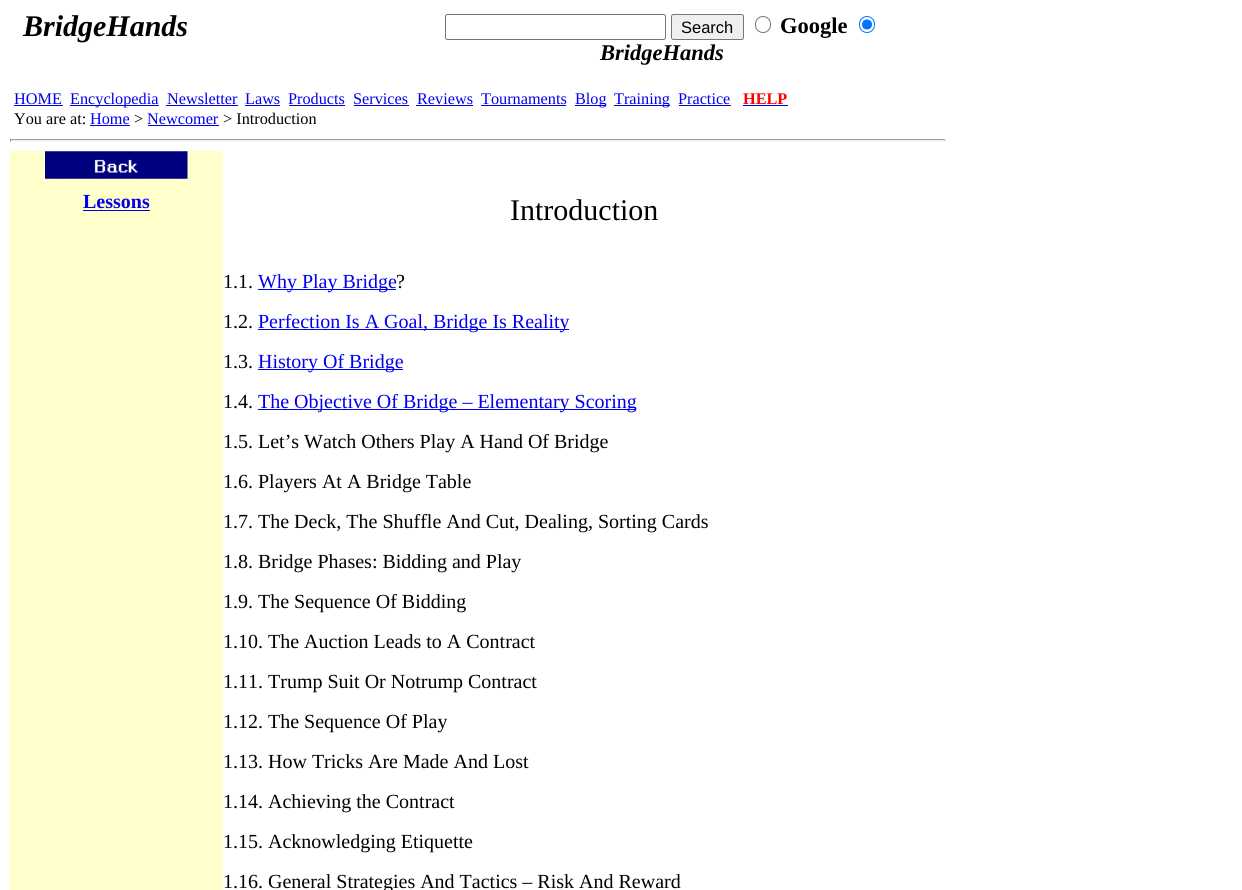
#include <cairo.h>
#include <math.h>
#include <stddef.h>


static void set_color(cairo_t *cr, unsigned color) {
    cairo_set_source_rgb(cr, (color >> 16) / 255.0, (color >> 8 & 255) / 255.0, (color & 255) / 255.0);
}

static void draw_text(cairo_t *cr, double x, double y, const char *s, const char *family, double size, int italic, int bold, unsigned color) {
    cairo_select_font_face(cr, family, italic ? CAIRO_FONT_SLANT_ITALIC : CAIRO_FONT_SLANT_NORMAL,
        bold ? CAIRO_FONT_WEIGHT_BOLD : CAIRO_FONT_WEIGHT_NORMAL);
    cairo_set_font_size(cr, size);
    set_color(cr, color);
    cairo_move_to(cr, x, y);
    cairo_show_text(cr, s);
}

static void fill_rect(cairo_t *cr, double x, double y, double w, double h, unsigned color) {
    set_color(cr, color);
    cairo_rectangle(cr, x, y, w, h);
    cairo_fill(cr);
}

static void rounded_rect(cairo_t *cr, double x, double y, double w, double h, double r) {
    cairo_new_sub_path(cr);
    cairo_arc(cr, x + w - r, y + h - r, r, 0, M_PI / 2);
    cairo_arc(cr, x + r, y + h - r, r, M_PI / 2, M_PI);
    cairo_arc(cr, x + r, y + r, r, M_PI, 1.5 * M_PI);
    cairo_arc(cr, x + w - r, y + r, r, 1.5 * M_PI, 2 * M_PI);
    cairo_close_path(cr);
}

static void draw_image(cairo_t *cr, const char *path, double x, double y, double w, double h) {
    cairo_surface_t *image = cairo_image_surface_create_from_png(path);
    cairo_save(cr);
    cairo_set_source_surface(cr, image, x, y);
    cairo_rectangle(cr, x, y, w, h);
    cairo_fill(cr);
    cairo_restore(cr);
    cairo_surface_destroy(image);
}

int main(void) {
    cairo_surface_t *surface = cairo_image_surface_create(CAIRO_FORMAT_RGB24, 1242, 890);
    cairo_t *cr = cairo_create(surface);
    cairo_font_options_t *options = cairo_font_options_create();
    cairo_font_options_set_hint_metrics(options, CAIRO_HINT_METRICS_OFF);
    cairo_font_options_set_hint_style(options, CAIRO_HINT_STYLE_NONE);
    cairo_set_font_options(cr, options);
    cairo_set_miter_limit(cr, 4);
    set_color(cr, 0xFFFFFF);
    cairo_paint(cr);
    draw_text(cr, 23, 36, "BridgeHands", "Liberation Serif", 30, 1, 1, 0x000000);
    rounded_rect(cr, 445.5, 14.5, 220, 25, 2);
    set_color(cr, 0x767676);
    cairo_set_line_width(cr, 1);
    cairo_stroke(cr);
    set_color(cr, 0xEFEFEF);
    rounded_rect(cr, 671.5, 14.5, 72, 25, 2);
    cairo_fill_preserve(cr);
    set_color(cr, 0x767676);
    cairo_stroke(cr);
    draw_text(cr, 681, 33, "Search", "Liberation Sans", 16.5, 0, 0, 0x000000);
    rounded_rect(cr, 755.5, 16.5, 15, 16, 7.5);
    set_color(cr, 0x767676);
    cairo_stroke(cr);
    draw_text(cr, 780, 33, "Google", "Liberation Serif", 22.5, 0, 1, 0x000000);
    rounded_rect(cr, 859.5, 16.5, 15, 16, 7.5);
    set_color(cr, 0x0075FF);
    cairo_stroke(cr);
    cairo_arc(cr, 867, 24.5, 5, 0, 2 * M_PI);
    cairo_fill(cr);
    draw_text(cr, 600, 60, "BridgeHands", "Liberation Serif", 22.5, 1, 1, 0x000000);
    draw_text(cr, 14, 104, "HOME", "Liberation Serif", 16.25, 0, 0, 0x0000EE);
    fill_rect(cr, 14, 105, 49, 1, 0x0000EE);
    fill_rect(cr, 70, 105, 89, 1, 0x0000EE);
    draw_text(cr, 70, 104, "Encyclopedia", "Liberation Serif", 16.25, 0, 0, 0x0000EE);
    draw_text(cr, 167, 104, "Newsletter", "Liberation Serif", 16.25, 0, 0, 0x0000EE);
    fill_rect(cr, 166, 105, 72, 1, 0x0000EE);
    draw_text(cr, 245, 104, "Laws", "Liberation Serif", 16.25, 0, 0, 0x0000EE);
    fill_rect(cr, 245, 105, 35, 1, 0x0000EE);
    draw_text(cr, 288, 104, "Products", "Liberation Serif", 16.25, 0, 0, 0x0000EE);
    fill_rect(cr, 289, 105, 56, 1, 0x0000EE);
    draw_text(cr, 353, 104, "Services", "Liberation Serif", 16.25, 0, 0, 0x0000EE);
    fill_rect(cr, 354, 105, 55, 1, 0x0000EE);
    draw_text(cr, 417, 104, "Reviews", "Liberation Serif", 16.25, 0, 0, 0x0000EE);
    fill_rect(cr, 416, 105, 57, 1, 0x0000EE);
    draw_text(cr, 481, 104, "Tournaments", "Liberation Serif", 16.25, 0, 0, 0x0000EE);
    fill_rect(cr, 481, 105, 85, 1, 0x0000EE);
    fill_rect(cr, 575, 105, 31, 1, 0x0000EE);
    draw_text(cr, 575, 104, "Blog", "Liberation Serif", 16.25, 0, 0, 0x0000EE);
    fill_rect(cr, 614, 105, 56, 1, 0x0000EE);
    draw_text(cr, 614, 104, "Training", "Liberation Serif", 16.25, 0, 0, 0x0000EE);
    draw_text(cr, 678, 104, "Practice", "Liberation Serif", 16.25, 0, 0, 0x0000EE);
    fill_rect(cr, 679, 105, 52, 1, 0x0000EE);
    draw_text(cr, 743, 104, "HELP", "Liberation Serif", 16.25, 0, 1, 0xFF0000);
    fill_rect(cr, 743, 105, 45, 1, 0x0000EE);
    draw_text(cr, 14, 124, "You are at:", "Liberation Serif", 16.25, 0, 0, 0x000000);
    draw_text(cr, 90, 124, "Home", "Liberation Serif", 16.25, 0, 0, 0x0000EE);
    fill_rect(cr, 90, 125, 40, 1, 0x0000EE);
    draw_text(cr, 134, 124, ">", "Liberation Serif", 16.25, 0, 0, 0x000000);
    draw_text(cr, 147, 124, "Newcomer", "Liberation Serif", 16.25, 0, 0, 0x0000EE);
    fill_rect(cr, 148, 125, 71, 1, 0x0000EE);
    draw_text(cr, 223, 124, "> Introduction", "Liberation Serif", 16.25, 0, 0, 0x000000);
    fill_rect(cr, 10, 139, 936, 1, 0x9F9F9F);
    fill_rect(cr, 945, 139, 1, 3, 0xEEEEEE);
    fill_rect(cr, 10, 140, 936, 1, 0xEEEEEE);
    fill_rect(cr, 10, 139, 1, 3, 0x9F9F9F);
    fill_rect(cr, 10, 151, 213, 739, 0xFFFFCC);
    draw_text(cr, 83, 208, "Lessons", "Liberation Serif", 20, 0, 1, 0x0000EE);
    fill_rect(cr, 83, 210, 67, 1, 0x0000EE);
    draw_image(cr, "assets/img1.png", 45, 151, 143, 28);
    draw_text(cr, 510, 220, "Introduction", "Liberation Serif", 30, 0, 0, 0x000000);
    draw_text(cr, 223, 288, "1.1.", "Liberation Serif", 20, 0, 0, 0x000000);
    fill_rect(cr, 258, 289, 138, 1, 0x0000EE);
    draw_text(cr, 258, 288, "Why Play Bridge", "Liberation Serif", 20, 0, 0, 0x0000EE);
    draw_text(cr, 396, 288, "?", "Liberation Serif", 20, 0, 0, 0x000000);
    draw_text(cr, 223, 328, "1.2.", "Liberation Serif", 20, 0, 0, 0x000000);
    fill_rect(cr, 258, 329, 311, 1, 0x0000EE);
    draw_text(cr, 258, 328, "Perfection Is A Goal, Bridge Is Reality", "Liberation Serif", 20, 0, 0, 0x0000EE);
    draw_text(cr, 223, 368, "1.3.", "Liberation Serif", 20, 0, 0, 0x000000);
    fill_rect(cr, 258, 369, 145, 1, 0x0000EE);
    draw_text(cr, 258, 368, "History Of Bridge", "Liberation Serif", 20, 0, 0, 0x0000EE);
    draw_text(cr, 223, 408, "1.4.", "Liberation Serif", 20, 0, 0, 0x000000);
    fill_rect(cr, 258, 409, 378, 1, 0x0000EE);
    draw_text(cr, 258, 408, "The Objective Of Bridge – Elementary Scoring", "Liberation Serif", 20, 0, 0, 0x0000EE);
    draw_text(cr, 223, 448, "1.5. Let’s Watch Others Play A Hand Of Bridge", "Liberation Serif", 20, 0, 0, 0x000000);
    draw_text(cr, 223, 488, "1.6. Players At A Bridge Table", "Liberation Serif", 20, 0, 0, 0x000000);
    draw_text(cr, 223, 528, "1.7. The Deck, The Shuffle And Cut, Dealing, Sorting Cards", "Liberation Serif", 20, 0, 0, 0x000000);
    draw_text(cr, 223, 568, "1.8. Bridge Phases: Bidding and Play", "Liberation Serif", 20, 0, 0, 0x000000);
    draw_text(cr, 223, 608, "1.9. The Sequence Of Bidding", "Liberation Serif", 20, 0, 0, 0x000000);
    draw_text(cr, 223, 648, "1.10. The Auction Leads to A Contract", "Liberation Serif", 20, 0, 0, 0x000000);
    draw_text(cr, 223, 688, "1.11. Trump Suit Or Notrump Contract", "Liberation Serif", 20, 0, 0, 0x000000);
    draw_text(cr, 223, 728, "1.12. The Sequence Of Play", "Liberation Serif", 20, 0, 0, 0x000000);
    draw_text(cr, 223, 768, "1.13. How Tricks Are Made And Lost", "Liberation Serif", 20, 0, 0, 0x000000);
    draw_text(cr, 223, 808, "1.14. Achieving the Contract", "Liberation Serif", 20, 0, 0, 0x000000);
    draw_text(cr, 223, 848, "1.15. Acknowledging Etiquette", "Liberation Serif", 20, 0, 0, 0x000000);
    draw_text(cr, 223, 888, "1.16. General Strategies And Tactics – Risk And Reward", "Liberation Serif", 20, 0, 0, 0x000000);
    cairo_surface_write_to_png(surface, "output.png");
    cairo_font_options_destroy(options);
    cairo_destroy(cr);
    cairo_surface_destroy(surface);
    return 0;
}
